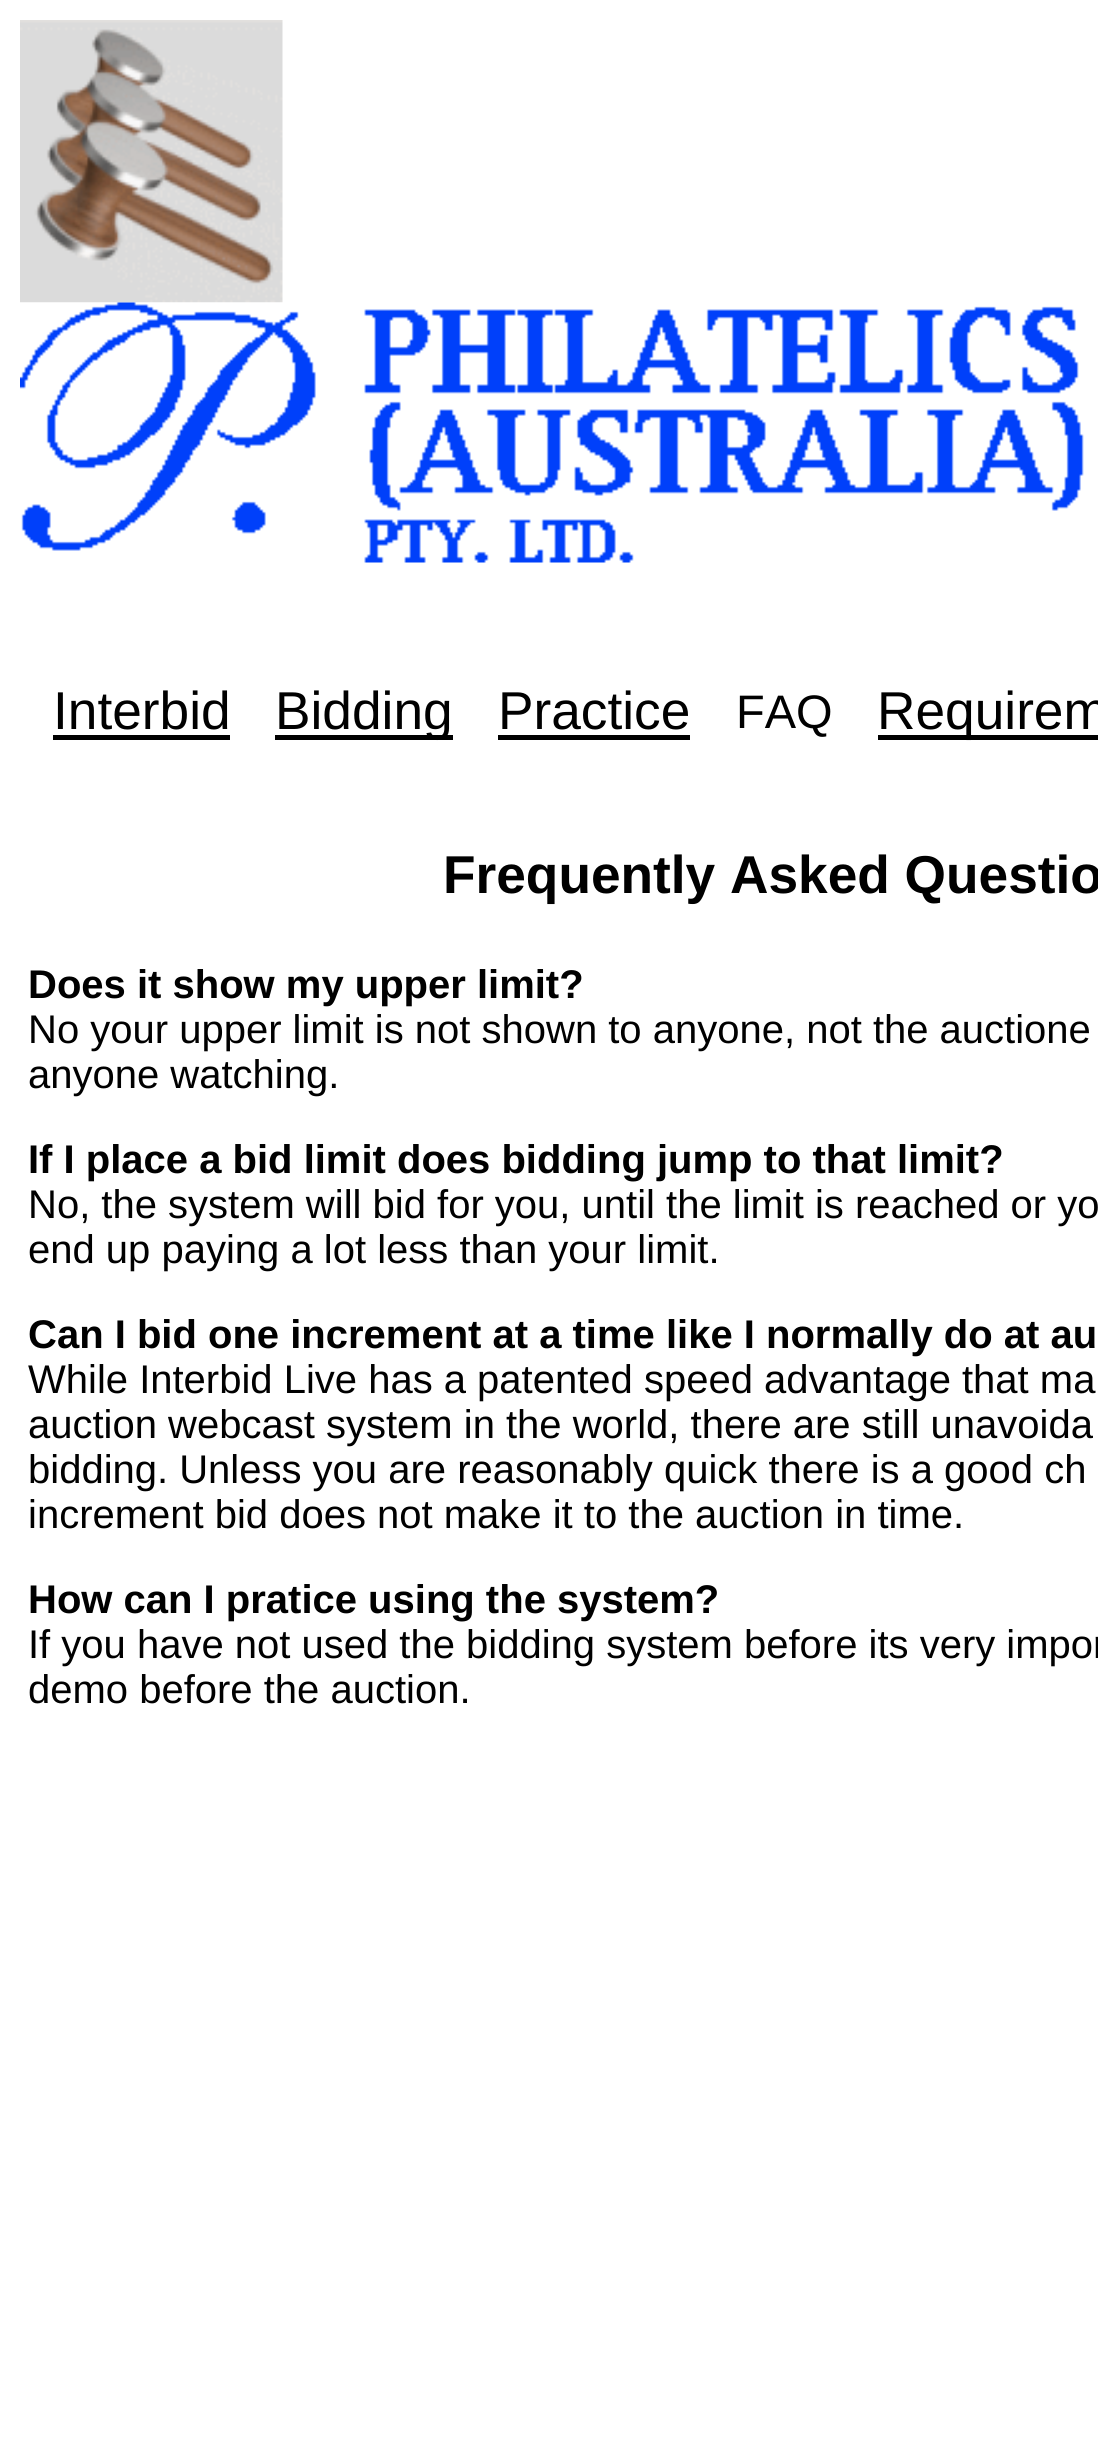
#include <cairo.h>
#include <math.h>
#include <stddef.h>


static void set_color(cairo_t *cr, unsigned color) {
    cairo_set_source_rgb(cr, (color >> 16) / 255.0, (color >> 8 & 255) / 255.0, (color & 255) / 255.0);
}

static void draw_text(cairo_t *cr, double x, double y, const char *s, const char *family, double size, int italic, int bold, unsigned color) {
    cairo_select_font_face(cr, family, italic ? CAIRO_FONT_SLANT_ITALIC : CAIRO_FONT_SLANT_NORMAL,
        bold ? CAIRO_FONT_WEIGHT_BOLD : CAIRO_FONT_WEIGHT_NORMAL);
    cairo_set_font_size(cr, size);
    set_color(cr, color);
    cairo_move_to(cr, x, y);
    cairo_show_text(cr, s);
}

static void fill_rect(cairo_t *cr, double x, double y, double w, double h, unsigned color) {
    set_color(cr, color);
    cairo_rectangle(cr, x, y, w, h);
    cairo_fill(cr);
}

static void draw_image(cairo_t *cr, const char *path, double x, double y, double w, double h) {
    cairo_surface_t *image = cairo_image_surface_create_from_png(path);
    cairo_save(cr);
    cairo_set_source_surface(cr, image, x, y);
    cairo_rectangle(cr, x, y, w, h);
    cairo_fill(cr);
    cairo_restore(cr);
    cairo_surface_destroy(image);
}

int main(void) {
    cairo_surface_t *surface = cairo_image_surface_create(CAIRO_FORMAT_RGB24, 1098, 2441);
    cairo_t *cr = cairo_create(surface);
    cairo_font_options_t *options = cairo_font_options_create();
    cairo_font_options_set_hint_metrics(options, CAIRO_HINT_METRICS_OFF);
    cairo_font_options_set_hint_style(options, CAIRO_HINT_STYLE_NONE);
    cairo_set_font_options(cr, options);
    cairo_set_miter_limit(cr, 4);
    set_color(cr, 0xFFFFFF);
    cairo_paint(cr);
    draw_image(cr, "assets/img1.png", 20, 20, 263, 283);
    draw_image(cr, "assets/img2.png", 20, 302, 1064, 261);
    draw_text(cr, 53, 729, "Interbid", "Liberation Sans", 53.25, 0, 0, 0x000000);
    fill_rect(cr, 53, 735, 177, 5, 0x000000);
    fill_rect(cr, 275, 735, 178, 5, 0x000000);
    draw_text(cr, 275, 729, "Bidding", "Liberation Sans", 53.25, 0, 0, 0x000000);
    draw_text(cr, 498, 729, "Practice", "Liberation Sans", 53.25, 0, 0, 0x000000);
    fill_rect(cr, 498, 735, 192, 5, 0x000000);
    draw_text(cr, 736, 728, "FAQ", "Liberation Sans", 47, 0, 0, 0x000000);
    fill_rect(cr, 878, 735, 220, 5, 0x000000);
    draw_text(cr, 877, 729, "Requirem", "Liberation Sans", 53.25, 0, 0, 0x000000);
    draw_text(cr, 443, 893, "Frequently Asked Questio", "Liberation Sans", 53.25, 0, 1, 0x000000);
    draw_text(cr, 28, 998, "Does it show my upper limit?", "Liberation Sans", 40, 0, 1, 0x000000);
    draw_text(cr, 28, 1043, "No your upper limit is not shown to anyone, not the auctione", "Liberation Sans", 40, 0, 0, 0x000000);
    draw_text(cr, 28, 1088, "anyone watching.", "Liberation Sans", 40, 0, 0, 0x000000);
    draw_text(cr, 28, 1173, "If I place a bid limit does bidding jump to that limit?", "Liberation Sans", 40, 0, 1, 0x000000);
    draw_text(cr, 28, 1218, "No, the system will bid for you, until the limit is reached or yo", "Liberation Sans", 40, 0, 0, 0x000000);
    draw_text(cr, 28, 1263, "end up paying a lot less than your limit.", "Liberation Sans", 40, 0, 0, 0x000000);
    draw_text(cr, 28, 1348, "Can I bid one increment at a time like I normally do at au", "Liberation Sans", 40, 0, 1, 0x000000);
    draw_text(cr, 28, 1393, "While Interbid Live has a patented speed advantage that ma", "Liberation Sans", 40, 0, 0, 0x000000);
    draw_text(cr, 28, 1438, "auction webcast system in the world, there are still unavoida", "Liberation Sans", 40, 0, 0, 0x000000);
    draw_text(cr, 28, 1483, "bidding. Unless you are reasonably quick there is a good ch", "Liberation Sans", 40, 0, 0, 0x000000);
    draw_text(cr, 28, 1528, "increment bid does not make it to the auction in time.", "Liberation Sans", 40, 0, 0, 0x000000);
    draw_text(cr, 28, 1613, "How can I pratice using the system?", "Liberation Sans", 40, 0, 1, 0x000000);
    draw_text(cr, 28, 1658, "If you have not used the bidding system before its very impor", "Liberation Sans", 40, 0, 0, 0x000000);
    draw_text(cr, 28, 1703, "demo before the auction.", "Liberation Sans", 40, 0, 0, 0x000000);
    cairo_surface_write_to_png(surface, "output.png");
    cairo_font_options_destroy(options);
    cairo_destroy(cr);
    cairo_surface_destroy(surface);
    return 0;
}
